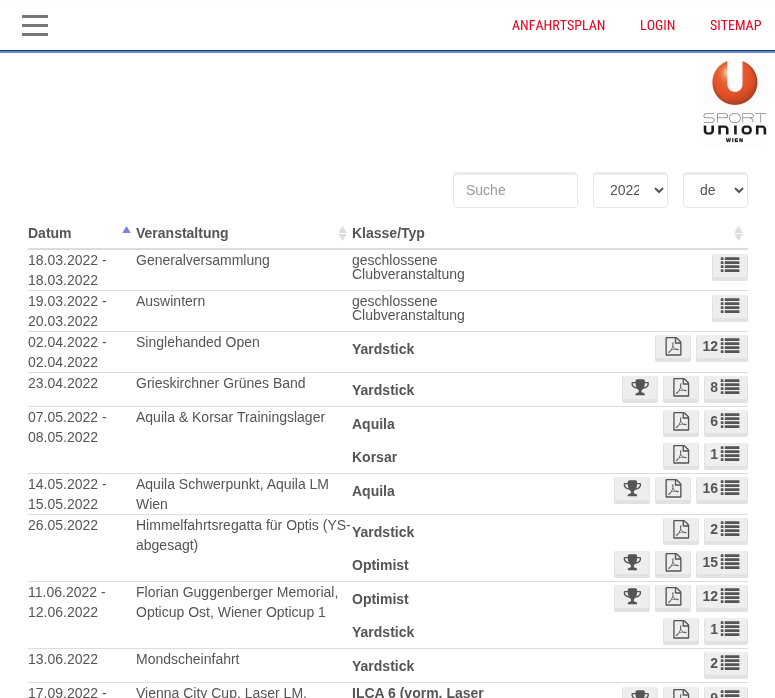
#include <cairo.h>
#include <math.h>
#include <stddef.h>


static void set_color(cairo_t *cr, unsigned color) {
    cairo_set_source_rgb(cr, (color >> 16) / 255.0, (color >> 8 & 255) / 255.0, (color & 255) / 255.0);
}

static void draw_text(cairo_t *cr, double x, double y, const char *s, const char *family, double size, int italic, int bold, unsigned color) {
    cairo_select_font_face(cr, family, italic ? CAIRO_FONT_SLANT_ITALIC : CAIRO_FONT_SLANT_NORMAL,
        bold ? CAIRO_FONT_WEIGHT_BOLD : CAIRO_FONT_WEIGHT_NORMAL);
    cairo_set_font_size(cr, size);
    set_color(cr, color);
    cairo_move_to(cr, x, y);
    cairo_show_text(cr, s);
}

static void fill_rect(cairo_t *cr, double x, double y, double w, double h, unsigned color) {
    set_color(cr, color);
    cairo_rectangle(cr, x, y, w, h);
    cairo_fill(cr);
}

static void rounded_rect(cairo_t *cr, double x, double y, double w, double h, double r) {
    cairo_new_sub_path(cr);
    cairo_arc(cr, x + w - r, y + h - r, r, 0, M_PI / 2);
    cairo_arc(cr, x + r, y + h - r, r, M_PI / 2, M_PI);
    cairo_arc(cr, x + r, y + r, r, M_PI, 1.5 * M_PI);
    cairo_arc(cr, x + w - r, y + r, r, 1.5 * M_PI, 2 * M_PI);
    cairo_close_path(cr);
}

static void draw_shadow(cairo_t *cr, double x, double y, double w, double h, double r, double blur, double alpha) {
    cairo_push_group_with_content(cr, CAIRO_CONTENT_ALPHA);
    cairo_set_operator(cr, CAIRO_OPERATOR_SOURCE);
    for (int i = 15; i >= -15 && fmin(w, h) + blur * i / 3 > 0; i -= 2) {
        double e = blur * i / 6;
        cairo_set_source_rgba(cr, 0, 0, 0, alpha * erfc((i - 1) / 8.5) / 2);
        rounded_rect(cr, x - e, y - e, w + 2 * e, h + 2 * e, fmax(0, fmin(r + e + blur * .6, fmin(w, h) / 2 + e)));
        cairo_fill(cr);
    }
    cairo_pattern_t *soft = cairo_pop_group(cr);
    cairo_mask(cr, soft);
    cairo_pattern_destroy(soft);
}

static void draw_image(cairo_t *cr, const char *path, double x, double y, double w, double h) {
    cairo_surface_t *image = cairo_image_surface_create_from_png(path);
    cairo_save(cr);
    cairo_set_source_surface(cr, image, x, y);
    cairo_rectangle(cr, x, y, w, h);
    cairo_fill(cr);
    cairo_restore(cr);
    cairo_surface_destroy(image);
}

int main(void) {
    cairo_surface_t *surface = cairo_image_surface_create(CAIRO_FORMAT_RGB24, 775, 698);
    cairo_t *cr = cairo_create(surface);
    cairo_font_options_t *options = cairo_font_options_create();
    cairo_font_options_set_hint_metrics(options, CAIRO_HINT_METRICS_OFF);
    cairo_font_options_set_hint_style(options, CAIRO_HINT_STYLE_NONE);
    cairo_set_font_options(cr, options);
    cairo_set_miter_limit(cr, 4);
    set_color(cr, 0xFFFFFF);
    cairo_paint(cr);
    fill_rect(cr, 0, 50, 775, 1, 0x0B4094);
    fill_rect(cr, 0, 51, 775, 2, 0x6D8CBF);
    set_color(cr, 0x000000);
    draw_shadow(cr, 1, 3, 773, 48, 0, 1, 0.1);
    fill_rect(cr, 0, 2, 775, 48, 0xFFFFFF);
    fill_rect(cr, 22, 24, 26, 3, 0x777777);
    fill_rect(cr, 22, 15, 26, 3, 0x777777);
    fill_rect(cr, 22, 33, 26, 3, 0x777777);
    draw_text(cr, 512, 30, "ANFAHRTSPLAN", "Roboto Condensed", 14, 0, 0, 0xE5011D);
    draw_text(cr, 640, 30, "LOGIN", "Roboto Condensed", 14, 0, 0, 0xE5011D);
    draw_text(cr, 710, 30, "SITEMAP", "Roboto Condensed", 14, 0, 0, 0xE5011D);
    draw_image(cr, "assets/img1.png", 703, 59, 64, 88);
    draw_image(cr, "assets/img2.png", 28, 172, 720, 526);
    cairo_surface_write_to_png(surface, "output.png");
    cairo_font_options_destroy(options);
    cairo_destroy(cr);
    cairo_surface_destroy(surface);
    return 0;
}
